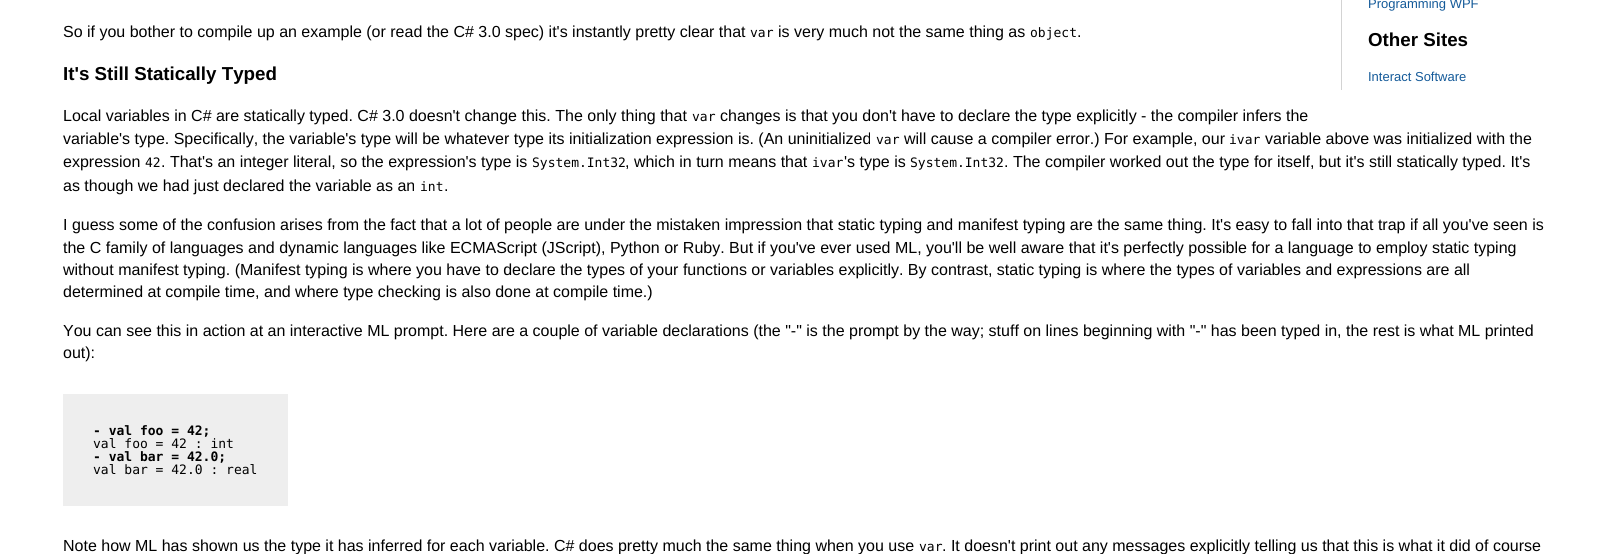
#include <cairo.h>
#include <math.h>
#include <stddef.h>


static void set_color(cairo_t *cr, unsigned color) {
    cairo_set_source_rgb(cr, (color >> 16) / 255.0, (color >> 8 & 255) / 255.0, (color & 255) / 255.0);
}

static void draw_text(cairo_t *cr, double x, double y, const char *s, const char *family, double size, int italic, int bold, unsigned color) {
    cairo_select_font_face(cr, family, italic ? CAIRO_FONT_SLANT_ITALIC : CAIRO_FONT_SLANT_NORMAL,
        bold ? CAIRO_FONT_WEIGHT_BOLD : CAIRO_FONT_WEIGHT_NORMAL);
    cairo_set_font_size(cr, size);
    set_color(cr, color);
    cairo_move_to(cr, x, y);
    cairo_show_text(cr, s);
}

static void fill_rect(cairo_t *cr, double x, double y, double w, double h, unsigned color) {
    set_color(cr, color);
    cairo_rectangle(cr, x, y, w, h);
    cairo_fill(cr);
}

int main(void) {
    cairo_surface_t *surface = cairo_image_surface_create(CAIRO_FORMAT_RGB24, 1612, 554);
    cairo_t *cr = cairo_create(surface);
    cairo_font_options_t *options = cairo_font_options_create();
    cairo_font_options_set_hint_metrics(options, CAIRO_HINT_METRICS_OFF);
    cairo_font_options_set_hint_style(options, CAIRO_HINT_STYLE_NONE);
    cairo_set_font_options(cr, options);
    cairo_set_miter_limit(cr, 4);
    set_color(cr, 0xFFFFFF);
    cairo_paint(cr);
    fill_rect(cr, 1341, 0, 1, 90, 0xD3D3D3);
    draw_text(cr, 1368, 8, "Programming WPF", "Liberation Sans", 13, 0, 0, 0x145A99);
    draw_text(cr, 1368, 46, "Other Sites", "Liberation Sans", 18.75, 0, 1, 0x000000);
    draw_text(cr, 1368, 81, "Interact Software", "Liberation Sans", 13, 0, 0, 0x145A99);
    draw_text(cr, 63, 37, "So if you bother to compile up an example (or read the C# 3.0 spec) it's instantly pretty clear that", "Liberation Sans", 16, 0, 0, 0x000000);
    draw_text(cr, 750, 37, "var", "DejaVu Sans Mono", 13, 0, 0, 0x000000);
    draw_text(cr, 778, 37, "is very much not the same thing as", "Liberation Sans", 16, 0, 0, 0x000000);
    draw_text(cr, 1030, 37, "object", "DejaVu Sans Mono", 13, 0, 0, 0x000000);
    draw_text(cr, 1077, 37, ".", "Liberation Sans", 16, 0, 0, 0x000000);
    draw_text(cr, 63, 80, "It's Still Statically Typed", "Liberation Sans", 18.75, 0, 1, 0x000000);
    draw_text(cr, 63, 121, "Local variables in C# are statically typed. C# 3.0 doesn't change this. The only thing that", "Liberation Sans", 16, 0, 0, 0x000000);
    draw_text(cr, 692, 121, "var", "DejaVu Sans Mono", 13, 0, 0, 0x000000);
    draw_text(cr, 720, 121, "changes is that you don't have to declare the type explicitly - the compiler infers the", "Liberation Sans", 16, 0, 0, 0x000000);
    draw_text(cr, 63, 144, "variable's type. Specifically, the variable's type will be whatever type its initialization expression is. (An uninitialized", "Liberation Sans", 16, 0, 0, 0x000000);
    draw_text(cr, 876, 144, "var", "DejaVu Sans Mono", 13, 0, 0, 0x000000);
    draw_text(cr, 904, 144, "will cause a compiler error.) For example, our", "Liberation Sans", 16, 0, 0, 0x000000);
    draw_text(cr, 1229, 144, "ivar", "DejaVu Sans Mono", 13, 0, 0, 0x000000);
    draw_text(cr, 1265, 144, "variable above was initialized with the", "Liberation Sans", 16, 0, 0, 0x000000);
    draw_text(cr, 63, 167, "expression", "Liberation Sans", 16, 0, 0, 0x000000);
    draw_text(cr, 145, 167, "42", "DejaVu Sans Mono", 13, 0, 0, 0x000000);
    draw_text(cr, 161, 167, ". That's an integer literal, so the expression's type is", "Liberation Sans", 16, 0, 0, 0x000000);
    draw_text(cr, 532, 167, "System.Int32", "DejaVu Sans Mono", 13, 0, 0, 0x000000);
    draw_text(cr, 625, 167, ", which in turn means that", "Liberation Sans", 16, 0, 0, 0x000000);
    draw_text(cr, 812, 167, "ivar", "DejaVu Sans Mono", 13, 0, 0, 0x000000);
    draw_text(cr, 844, 167, "'s type is", "Liberation Sans", 16, 0, 0, 0x000000);
    draw_text(cr, 910, 167, "System.Int32", "DejaVu Sans Mono", 13, 0, 0, 0x000000);
    draw_text(cr, 1004, 167, ". The compiler worked out the type for itself, but it's still statically typed. It's", "Liberation Sans", 16, 0, 0, 0x000000);
    draw_text(cr, 63, 191, "as though we had just declared the variable as an", "Liberation Sans", 16, 0, 0, 0x000000);
    draw_text(cr, 420, 191, "int", "DejaVu Sans Mono", 13, 0, 0, 0x000000);
    draw_text(cr, 444, 191, ".", "Liberation Sans", 16, 0, 0, 0x000000);
    draw_text(cr, 63, 230, "I guess some of the confusion arises from the fact that a lot of people are under the mistaken impression that static typing and manifest typing are the same thing. It's easy to fall into that trap if all you've seen is", "Liberation Sans", 16, 0, 0, 0x000000);
    draw_text(cr, 63, 253, "the C family of languages and dynamic languages like ECMAScript (JScript), Python or Ruby. But if you've ever used ML, you'll be well aware that it's perfectly possible for a language to employ static typing", "Liberation Sans", 16, 0, 0, 0x000000);
    draw_text(cr, 63, 275, "without manifest typing. (Manifest typing is where you have to declare the types of your functions or variables explicitly. By contrast, static typing is where the types of variables and expressions are all", "Liberation Sans", 16, 0, 0, 0x000000);
    draw_text(cr, 63, 297, "determined at compile time, and where type checking is also done at compile time.)", "Liberation Sans", 16, 0, 0, 0x000000);
    draw_text(cr, 63, 336, "You can see this in action at an interactive ML prompt. Here are a couple of variable declarations (the \"-\" is the prompt by the way; stuff on lines beginning with \"-\" has been typed in, the rest is what ML printed", "Liberation Sans", 16, 0, 0, 0x000000);
    draw_text(cr, 63, 358, "out):", "Liberation Sans", 16, 0, 0, 0x000000);
    fill_rect(cr, 63, 394, 225, 112, 0xEEEEEE);
    draw_text(cr, 93, 435, "- val foo = 42;", "DejaVu Sans Mono", 13, 0, 1, 0x000000);
    draw_text(cr, 93, 448, "val foo = 42 : int", "DejaVu Sans Mono", 13, 0, 0, 0x000000);
    draw_text(cr, 93, 461, "- val bar = 42.0;", "DejaVu Sans Mono", 13, 0, 1, 0x000000);
    draw_text(cr, 93, 474, "val bar = 42.0 : real", "DejaVu Sans Mono", 13, 0, 0, 0x000000);
    draw_text(cr, 63, 551, "Note how ML has shown us the type it has inferred for each variable. C# does pretty much the same thing when you use", "Liberation Sans", 16, 0, 0, 0x000000);
    draw_text(cr, 919, 551, "var", "DejaVu Sans Mono", 13, 0, 0, 0x000000);
    draw_text(cr, 942, 551, ". It doesn't print out any messages explicitly telling us that this is what it did of course", "Liberation Sans", 16, 0, 0, 0x000000);
    cairo_surface_write_to_png(surface, "output.png");
    cairo_font_options_destroy(options);
    cairo_destroy(cr);
    cairo_surface_destroy(surface);
    return 0;
}
